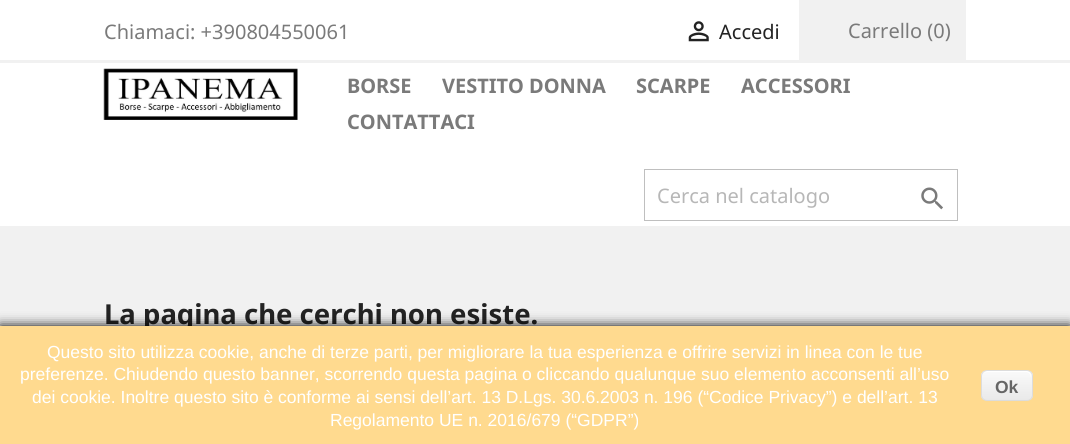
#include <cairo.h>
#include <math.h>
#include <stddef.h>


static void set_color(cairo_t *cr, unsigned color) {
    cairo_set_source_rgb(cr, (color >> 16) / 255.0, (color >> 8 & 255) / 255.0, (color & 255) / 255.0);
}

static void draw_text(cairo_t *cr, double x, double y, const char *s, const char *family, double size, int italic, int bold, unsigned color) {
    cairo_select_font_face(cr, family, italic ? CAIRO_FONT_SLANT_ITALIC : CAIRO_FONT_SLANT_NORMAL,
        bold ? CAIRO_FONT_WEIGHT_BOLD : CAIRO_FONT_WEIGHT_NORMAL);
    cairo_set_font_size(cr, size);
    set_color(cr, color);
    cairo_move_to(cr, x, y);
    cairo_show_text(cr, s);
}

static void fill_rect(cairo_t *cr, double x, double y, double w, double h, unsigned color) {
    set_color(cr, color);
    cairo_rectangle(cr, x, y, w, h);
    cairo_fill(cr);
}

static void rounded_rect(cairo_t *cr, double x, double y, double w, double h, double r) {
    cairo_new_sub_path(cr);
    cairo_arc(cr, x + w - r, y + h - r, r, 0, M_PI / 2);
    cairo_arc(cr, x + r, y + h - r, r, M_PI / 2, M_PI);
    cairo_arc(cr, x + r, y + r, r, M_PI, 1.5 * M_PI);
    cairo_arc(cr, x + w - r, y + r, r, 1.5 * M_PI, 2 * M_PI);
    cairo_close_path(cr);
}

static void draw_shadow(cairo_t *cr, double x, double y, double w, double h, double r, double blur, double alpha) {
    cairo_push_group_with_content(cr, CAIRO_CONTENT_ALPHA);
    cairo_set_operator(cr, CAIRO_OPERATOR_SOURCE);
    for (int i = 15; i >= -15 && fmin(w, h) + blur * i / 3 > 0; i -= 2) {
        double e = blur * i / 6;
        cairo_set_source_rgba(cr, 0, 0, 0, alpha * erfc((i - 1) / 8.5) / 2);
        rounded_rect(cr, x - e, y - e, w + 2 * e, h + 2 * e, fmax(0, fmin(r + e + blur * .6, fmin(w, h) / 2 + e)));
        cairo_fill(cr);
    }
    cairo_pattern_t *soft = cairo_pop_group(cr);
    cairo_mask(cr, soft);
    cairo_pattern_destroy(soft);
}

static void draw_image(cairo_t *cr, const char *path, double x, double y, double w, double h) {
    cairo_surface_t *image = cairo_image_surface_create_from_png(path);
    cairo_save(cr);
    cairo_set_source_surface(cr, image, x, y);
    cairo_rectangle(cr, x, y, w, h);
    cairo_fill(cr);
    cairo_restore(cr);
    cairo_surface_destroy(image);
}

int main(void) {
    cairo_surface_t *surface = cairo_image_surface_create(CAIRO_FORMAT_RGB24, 1070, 444);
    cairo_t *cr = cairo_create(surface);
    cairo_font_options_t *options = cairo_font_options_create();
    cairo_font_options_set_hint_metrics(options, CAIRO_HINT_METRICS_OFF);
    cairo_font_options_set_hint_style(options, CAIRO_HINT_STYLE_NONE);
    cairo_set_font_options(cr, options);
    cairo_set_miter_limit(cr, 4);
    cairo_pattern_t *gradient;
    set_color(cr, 0xFFFFFF);
    cairo_paint(cr);
    fill_rect(cr, 0, 60, 1070, 3, 0xF1F1F1);
    draw_text(cr, 104, 39, "Chiamaci: +390804550061", "Noto Sans", 20, 0, 0, 0x7A7A7A);
    draw_image(cr, "assets/img1.png", 688, 21, 21, 21);
    draw_text(cr, 719, 39, "Accedi", "Noto Sans", 20, 0, 0, 0x232323);
    fill_rect(cr, 799, 0, 167, 60, 0xF1F1F1);
    draw_text(cr, 848, 38, "Carrello (0)", "Noto Sans", 20, 0, 0, 0x7A7A7A);
    draw_image(cr, "assets/img2.png", 103, 68, 195, 52);
    draw_text(cr, 347, 93, "BORSE", "Noto Sans", 20, 0, 1, 0x7A7A7A);
    draw_text(cr, 442, 93, "VESTITO DONNA", "Noto Sans", 20, 0, 1, 0x7A7A7A);
    draw_text(cr, 636, 93, "SCARPE", "Noto Sans", 20, 0, 1, 0x7A7A7A);
    draw_text(cr, 741, 93, "ACCESSORI", "Noto Sans", 20, 0, 1, 0x7A7A7A);
    draw_text(cr, 347, 129, "CONTATTACI", "Noto Sans", 20, 0, 1, 0x7A7A7A);
    cairo_rectangle(cr, 644.5, 169.5, 313, 51);
    set_color(cr, 0xBFBFBF);
    cairo_set_line_width(cr, 1);
    cairo_stroke(cr);
    draw_text(cr, 657, 203, "Cerca nel catalogo", "Noto Sans", 20, 0, 0, 0xB7B7B7);
    draw_image(cr, "assets/img3.png", 921, 187, 22, 23);
    fill_rect(cr, 0, 226, 1070, 100, 0xF1F1F1);
    draw_text(cr, 104, 324, "La pagina che cerchi non esiste.", "Noto Sans", 27.5, 0, 1, 0x232323);
    set_color(cr, 0x000000);
    draw_shadow(cr, 0, 326, 1070, 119, 0, 6, 1);
    fill_rect(cr, 0, 326, 1070, 118, 0xFFDA8F);
    draw_text(cr, 47, 358, "Questo sito utilizza cookie, anche di terze parti, per migliorare la tua esperienza e offrire servizi in linea con le tue", "Liberation Sans", 17.5, 0, 0, 0xFFFFFF);
    draw_text(cr, 20, 380, "preferenze. Chiudendo questo banner, scorrendo questa pagina o cliccando qualunque suo elemento acconsenti all’uso", "Liberation Sans", 17.5, 0, 0, 0xFFFFFF);
    draw_text(cr, 32, 403, "dei cookie. Inoltre questo sito è conforme ai sensi dell’art. 13 D.Lgs. 30.6.2003 n. 196 (“Codice Privacy”) e dell’art. 13", "Liberation Sans", 17.5, 0, 0, 0xFFFFFF);
    draw_text(cr, 330, 426, "Regolamento UE n. 2016/679 (“GDPR”)", "Liberation Sans", 17.5, 0, 0, 0xFFFFFF);
    cairo_save(cr);
    rounded_rect(cr, 981, 370, 52, 31, 6);
    cairo_clip(cr);
    gradient = cairo_pattern_create_linear(983, 371, 983, 400);
    cairo_pattern_add_color_stop_rgba(gradient, 0.05, 0.976, 0.976, 0.976, 1);
    cairo_pattern_add_color_stop_rgba(gradient, 1, 0.914, 0.914, 0.914, 1);
    cairo_set_source(cr, gradient);
    cairo_pattern_destroy(gradient);
    cairo_rectangle(cr, 981, 371, 52, 29);
    cairo_fill(cr);
    cairo_restore(cr);
    cairo_new_path(cr);
    cairo_move_to(cr, 988, 372);
    cairo_line_to(cr, 1026, 372);
    cairo_curve_to(cr, 1029, 372, 1031, 375, 1031, 378);
    cairo_line_to(cr, 1031, 376);
    cairo_curve_to(cr, 1031, 373, 1029, 371, 1026, 371);
    cairo_line_to(cr, 988, 371);
    cairo_curve_to(cr, 986, 371, 984, 373, 983, 375);
    cairo_curve_to(cr, 984, 373, 986, 372, 988, 372);
    cairo_close_path(cr);
    cairo_fill(cr);
    rounded_rect(cr, 981.5, 370.5, 51, 30, 5.5);
    set_color(cr, 0xDCDCDC);
    cairo_stroke(cr);
    draw_text(cr, 995, 393, "Ok", "Liberation Sans", 17.5, 0, 1, 0x666666);
    cairo_surface_write_to_png(surface, "output.png");
    cairo_font_options_destroy(options);
    cairo_destroy(cr);
    cairo_surface_destroy(surface);
    return 0;
}
